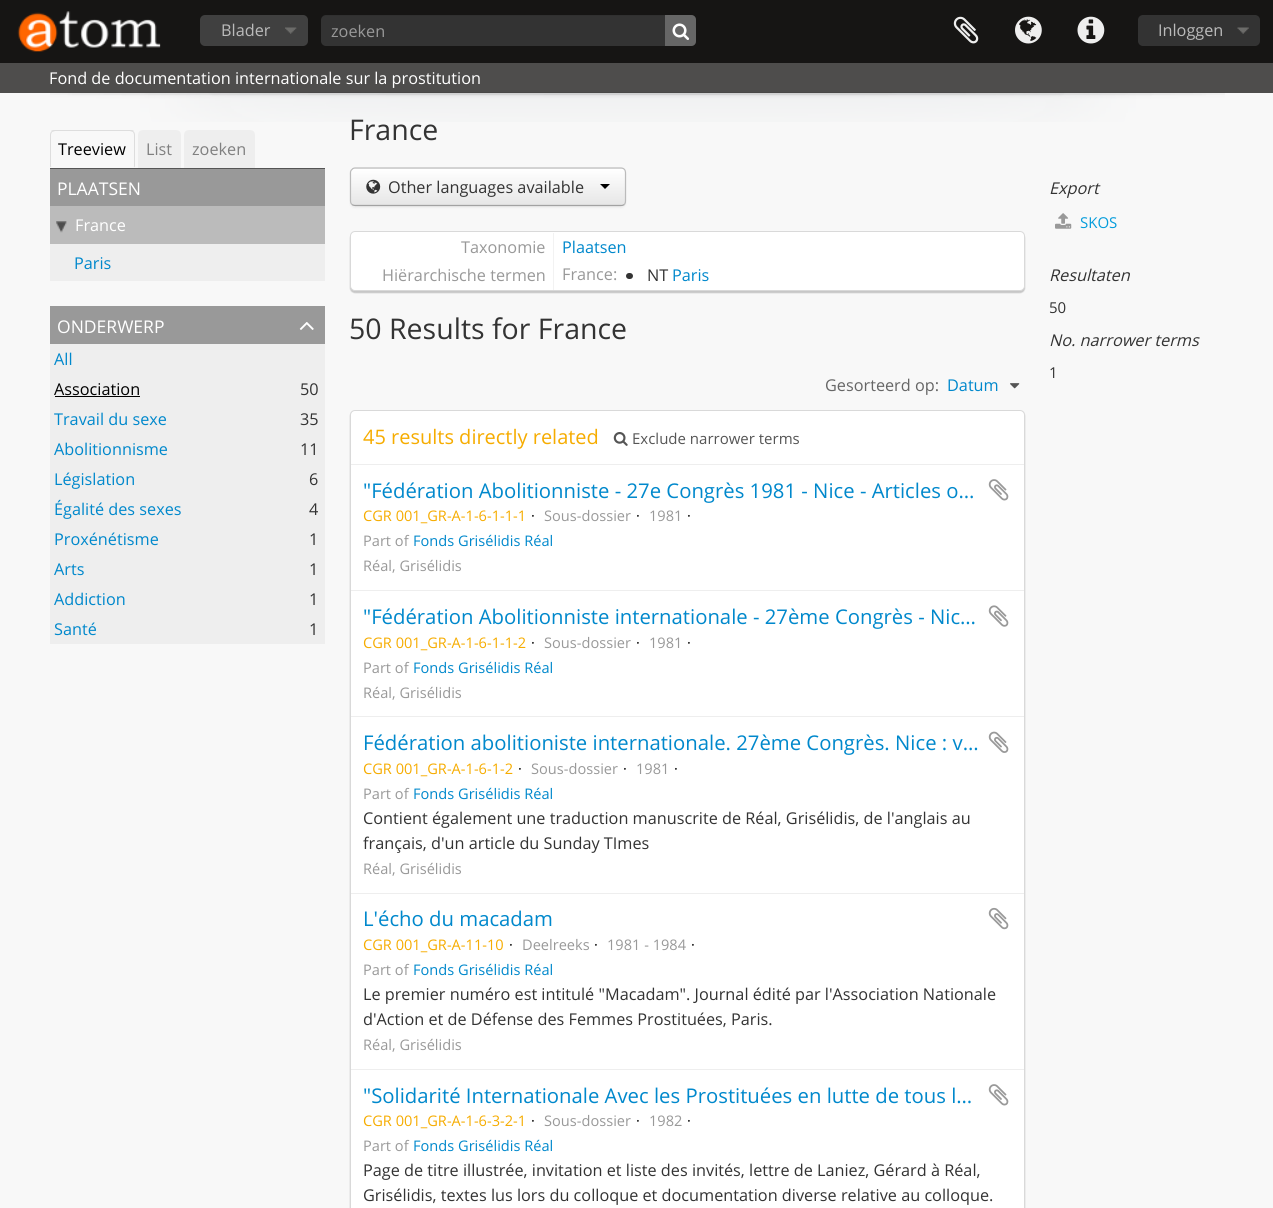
#include <cairo.h>
#include <math.h>
#include <stddef.h>


static void set_color(cairo_t *cr, unsigned color) {
    cairo_set_source_rgb(cr, (color >> 16) / 255.0, (color >> 8 & 255) / 255.0, (color & 255) / 255.0);
}

static void draw_text(cairo_t *cr, double x, double y, const char *s, const char *family, double size, int italic, int bold, unsigned color) {
    cairo_select_font_face(cr, family, italic ? CAIRO_FONT_SLANT_ITALIC : CAIRO_FONT_SLANT_NORMAL,
        bold ? CAIRO_FONT_WEIGHT_BOLD : CAIRO_FONT_WEIGHT_NORMAL);
    cairo_set_font_size(cr, size);
    set_color(cr, color);
    cairo_move_to(cr, x, y);
    cairo_show_text(cr, s);
}

static void fill_rect(cairo_t *cr, double x, double y, double w, double h, unsigned color) {
    set_color(cr, color);
    cairo_rectangle(cr, x, y, w, h);
    cairo_fill(cr);
}

static void rounded_rect(cairo_t *cr, double x, double y, double w, double h, double r) {
    cairo_new_sub_path(cr);
    cairo_arc(cr, x + w - r, y + h - r, r, 0, M_PI / 2);
    cairo_arc(cr, x + r, y + h - r, r, M_PI / 2, M_PI);
    cairo_arc(cr, x + r, y + r, r, M_PI, 1.5 * M_PI);
    cairo_arc(cr, x + w - r, y + r, r, 1.5 * M_PI, 2 * M_PI);
    cairo_close_path(cr);
}

static void draw_shadow(cairo_t *cr, double x, double y, double w, double h, double r, double blur, double alpha) {
    cairo_push_group_with_content(cr, CAIRO_CONTENT_ALPHA);
    cairo_set_operator(cr, CAIRO_OPERATOR_SOURCE);
    for (int i = 15; i >= -15 && fmin(w, h) + blur * i / 3 > 0; i -= 2) {
        double e = blur * i / 6;
        cairo_set_source_rgba(cr, 0, 0, 0, alpha * erfc((i - 1) / 8.5) / 2);
        rounded_rect(cr, x - e, y - e, w + 2 * e, h + 2 * e, fmax(0, fmin(r + e + blur * .6, fmin(w, h) / 2 + e)));
        cairo_fill(cr);
    }
    cairo_pattern_t *soft = cairo_pop_group(cr);
    cairo_mask(cr, soft);
    cairo_pattern_destroy(soft);
}

static void draw_image(cairo_t *cr, const char *path, double x, double y, double w, double h) {
    cairo_surface_t *image = cairo_image_surface_create_from_png(path);
    cairo_save(cr);
    cairo_set_source_surface(cr, image, x, y);
    cairo_rectangle(cr, x, y, w, h);
    cairo_fill(cr);
    cairo_restore(cr);
    cairo_surface_destroy(image);
}

int main(void) {
    cairo_surface_t *surface = cairo_image_surface_create(CAIRO_FORMAT_RGB24, 1273, 1208);
    cairo_t *cr = cairo_create(surface);
    cairo_font_options_t *options = cairo_font_options_create();
    cairo_font_options_set_hint_metrics(options, CAIRO_HINT_METRICS_OFF);
    cairo_font_options_set_hint_style(options, CAIRO_HINT_STYLE_NONE);
    cairo_set_font_options(cr, options);
    cairo_set_miter_limit(cr, 4);
    cairo_pattern_t *gradient;
    set_color(cr, 0xF8F8F8);
    cairo_paint(cr);
    fill_rect(cr, 0, 0, 1273, 63, 0x161514);
    draw_image(cr, "assets/img1.png", 17, 11, 144, 41);
    set_color(cr, 0x404040);
    rounded_rect(cr, 200, 15, 108, 31, 5);
    cairo_fill(cr);
    draw_image(cr, "assets/img2.png", 285, 27, 12, 7);
    draw_text(cr, 221, 36, "Blader", "Open Sans", 16.25, 0, 0, 0xBBBBBB);
    set_color(cr, 0x333333);
    rounded_rect(cr, 321, 15, 375, 31, 5);
    cairo_fill(cr);
    cairo_set_source_rgba(cr, 0, 0, 0, 0.07);
    cairo_new_path(cr);
    cairo_move_to(cr, 326, 16);
    cairo_line_to(cr, 691, 16);
    cairo_curve_to(cr, 694, 16, 696, 18, 696, 21);
    cairo_line_to(cr, 696, 20);
    cairo_curve_to(cr, 696, 17, 694, 15, 691, 15);
    cairo_line_to(cr, 326, 15);
    cairo_curve_to(cr, 323, 15, 321, 17, 321, 20);
    cairo_line_to(cr, 321, 21);
    cairo_curve_to(cr, 321, 18, 323, 16, 326, 16);
    cairo_close_path(cr);
    cairo_fill(cr);
    draw_text(cr, 331, 37, "zoeken", "Open Sans", 16.25, 0, 0, 0x999999);
    set_color(cr, 0x666666);
    cairo_new_path(cr);
    cairo_move_to(cr, 665, 15);
    cairo_line_to(cr, 691, 15);
    cairo_curve_to(cr, 694, 15, 696, 17, 696, 20);
    cairo_line_to(cr, 696, 41);
    cairo_curve_to(cr, 696, 44, 694, 46, 691, 46);
    cairo_line_to(cr, 665, 46);
    cairo_close_path(cr);
    cairo_fill(cr);
    draw_image(cr, "assets/img3.png", 672, 23, 18, 17);
    draw_image(cr, "assets/img4.png", 953, 16, 26, 28);
    draw_image(cr, "assets/img5.png", 1015, 16, 27, 28);
    draw_image(cr, "assets/img6.png", 1077, 16, 28, 28);
    set_color(cr, 0x333333);
    rounded_rect(cr, 1138, 15, 122, 31, 5);
    cairo_fill(cr);
    draw_image(cr, "assets/img7.png", 1237, 27, 12, 7);
    draw_text(cr, 1158, 36, "Inloggen", "Open Sans", 16.25, 0, 0, 0xBBBBBB);
    draw_image(cr, "assets/img8.png", 50, 92, 1175, 30);
    cairo_set_source_rgba(cr, 0.086, 0.082, 0.078, 0.75);
    cairo_rectangle(cr, 0, 63, 1273, 30);
    cairo_fill(cr);
    draw_text(cr, 49, 84, "Fond de documentation internationale sur la prostitution", "Open Sans", 16.25, 0, 0, 0xFFFFFF);
    fill_rect(cr, 50, 168, 275, 1, 0x555555);
    set_color(cr, 0xDDDDDD);
    cairo_new_path(cr);
    cairo_move_to(cr, 55, 130);
    cairo_curve_to(cr, 54, 130, 52, 130, 51, 131);
    cairo_line_to(cr, 52, 132);
    cairo_line_to(cr, 55, 131);
    cairo_line_to(cr, 130, 131);
    cairo_line_to(cr, 133, 132);
    cairo_line_to(cr, 134, 131);
    cairo_curve_to(cr, 133, 130, 132, 130, 130, 130);
    cairo_close_path(cr);
    cairo_fill(cr);
    cairo_new_path(cr);
    cairo_move_to(cr, 135, 167.5);
    cairo_line_to(cr, 135, 135);
    cairo_curve_to(cr, 135, 133.5, 134.5, 132, 133.5, 131.5);
    cairo_line_to(cr, 133, 132);
    cairo_curve_to(cr, 133.5, 133, 134, 134, 134, 135);
    cairo_line_to(cr, 134, 166);
    cairo_line_to(cr, 133.5, 166);
    cairo_close_path(cr);
    cairo_fill(cr);
    cairo_new_path(cr);
    cairo_move_to(cr, 50, 167.5);
    cairo_line_to(cr, 51.5, 166);
    cairo_line_to(cr, 51, 166);
    cairo_line_to(cr, 51, 135);
    cairo_curve_to(cr, 51, 134, 51.5, 133, 52, 132);
    cairo_line_to(cr, 51.5, 131.5);
    cairo_curve_to(cr, 50.5, 132, 50, 133.5, 50, 135);
    cairo_close_path(cr);
    cairo_fill(cr);
    draw_text(cr, 58, 155, "Treeview", "Open Sans", 16.25, 0, 0, 0x000000);
    set_color(cr, 0xEEEEEE);
    cairo_new_path(cr);
    cairo_move_to(cr, 143, 130);
    cairo_line_to(cr, 176, 130);
    cairo_curve_to(cr, 179, 130, 181, 132, 181, 135);
    cairo_line_to(cr, 181, 168);
    cairo_line_to(cr, 138, 168);
    cairo_line_to(cr, 138, 135);
    cairo_curve_to(cr, 138, 132, 140, 130, 143, 130);
    cairo_close_path(cr);
    cairo_fill(cr);
    draw_text(cr, 146, 155, "List", "Open Sans", 16.25, 0, 0, 0x808080);
    set_color(cr, 0xEEEEEE);
    cairo_new_path(cr);
    cairo_move_to(cr, 189, 130);
    cairo_line_to(cr, 250, 130);
    cairo_curve_to(cr, 253, 130, 255, 132, 255, 135);
    cairo_line_to(cr, 255, 168);
    cairo_line_to(cr, 184, 168);
    cairo_line_to(cr, 184, 135);
    cairo_curve_to(cr, 184, 132, 186, 130, 189, 130);
    cairo_close_path(cr);
    cairo_fill(cr);
    draw_text(cr, 192, 155, "zoeken", "Open Sans", 16.25, 0, 0, 0x808080);
    fill_rect(cr, 50, 244, 275, 37, 0xEEEEEE);
    fill_rect(cr, 50, 169, 275, 37, 0x999999);
    draw_text(cr, 57, 195, "PLAATSEN", "Open Sans", 17.5, 0, 0, 0xFFFFFF);
    fill_rect(cr, 50, 206, 275, 38, 0xBBBBBB);
    draw_image(cr, "assets/img9.png", 56, 221, 11, 12);
    draw_text(cr, 75, 231, "France", "Open Sans", 16.25, 0, 0, 0xFFFFFF);
    draw_text(cr, 74, 269, "Paris", "Open Sans", 16.25, 0, 0, 0x0088CC);
    fill_rect(cr, 50, 306, 275, 38, 0x999999);
    draw_text(cr, 57, 333, "ONDERWERP", "Open Sans", 17.5, 0, 0, 0xFFFFFF);
    draw_image(cr, "assets/img10.png", 299, 322, 15, 8);
    fill_rect(cr, 50, 344, 275, 300, 0xEEEEEE);
    draw_text(cr, 54, 365, "All", "Open Sans", 16.25, 0, 0, 0x0088CC);
    draw_text(cr, 54, 395, "Association", "Open Sans", 16.25, 0, 0, 0x000000);
    fill_rect(cr, 55, 396, 85, 1, 0x000000);
    draw_text(cr, 300, 395, "50", "Open Sans", 16.25, 0, 0, 0x333333);
    draw_text(cr, 54, 425, "Travail du sexe", "Open Sans", 16.25, 0, 0, 0x0088CC);
    draw_text(cr, 300, 425, "35", "Open Sans", 16.25, 0, 0, 0x333333);
    draw_text(cr, 54, 455, "Abolitionnisme", "Open Sans", 16.25, 0, 0, 0x0088CC);
    draw_text(cr, 300, 455, "11", "Open Sans", 16.25, 0, 0, 0x333333);
    draw_text(cr, 54, 485, "Législation", "Open Sans", 16.25, 0, 0, 0x0088CC);
    draw_text(cr, 309, 485, "6", "Open Sans", 16.25, 0, 0, 0x333333);
    draw_text(cr, 54, 515, "Égalité des sexes", "Open Sans", 16.25, 0, 0, 0x0088CC);
    draw_text(cr, 309, 515, "4", "Open Sans", 16.25, 0, 0, 0x333333);
    draw_text(cr, 54, 545, "Proxénétisme", "Open Sans", 16.25, 0, 0, 0x0088CC);
    draw_text(cr, 309, 545, "1", "Open Sans", 16.25, 0, 0, 0x333333);
    draw_text(cr, 54, 575, "Arts", "Open Sans", 16.25, 0, 0, 0x0088CC);
    draw_text(cr, 309, 575, "1", "Open Sans", 16.25, 0, 0, 0x333333);
    draw_text(cr, 54, 605, "Addiction", "Open Sans", 16.25, 0, 0, 0x0088CC);
    draw_text(cr, 309, 605, "1", "Open Sans", 16.25, 0, 0, 0x333333);
    draw_text(cr, 54, 635, "Santé", "Open Sans", 16.25, 0, 0, 0x0088CC);
    draw_text(cr, 309, 635, "1", "Open Sans", 16.25, 0, 0, 0x333333);
    draw_text(cr, 349, 140, "France", "Open Sans", 28.5, 0, 0, 0x333333);
    set_color(cr, 0x000000);
    draw_shadow(cr, 350, 169, 276, 39, 5, 1, 0.05);
    set_color(cr, 0xF5F5F5);
    rounded_rect(cr, 350, 168, 276, 38, 5);
    cairo_fill(cr);
    cairo_save(cr);
    rounded_rect(cr, 350, 168, 276, 38, 5);
    cairo_clip(cr);
    gradient = cairo_pattern_create_linear(488, 169, 488, 205);
    cairo_pattern_add_color_stop_rgba(gradient, 0, 1, 1, 1, 1);
    cairo_pattern_add_color_stop_rgba(gradient, 1, 0.902, 0.902, 0.902, 1);
    cairo_set_source(cr, gradient);
    cairo_pattern_destroy(gradient);
    cairo_rectangle(cr, 350, 169, 276, 36);
    cairo_fill(cr);
    cairo_restore(cr);
    cairo_new_path(cr);
    cairo_move_to(cr, 624.5, 204.5);
    cairo_curve_to(cr, 623.5, 205, 622.5, 205.5, 621, 205.5);
    cairo_line_to(cr, 355, 205.5);
    cairo_curve_to(cr, 354, 205.5, 352.5, 205, 352, 204.5);
    set_color(cr, 0xA2A2A2);
    cairo_set_line_width(cr, 1.2);
    cairo_stroke(cr);
    cairo_new_path(cr);
    cairo_move_to(cr, 352, 204.5);
    cairo_curve_to(cr, 351, 203.5, 350.5, 202.5, 350.5, 201);
    cairo_line_to(cr, 350.5, 172.5);
    cairo_curve_to(cr, 350.5, 171.5, 351, 170, 352, 169.5);
    cairo_curve_to(cr, 352.5, 168.5, 354, 168, 355, 168);
    cairo_line_to(cr, 621, 168);
    cairo_curve_to(cr, 622.5, 168, 623.5, 168.5, 624.5, 169.5);
    cairo_curve_to(cr, 625, 170, 625.5, 171.5, 625.5, 172.5);
    cairo_line_to(cr, 625.5, 201);
    cairo_curve_to(cr, 625.5, 202.5, 625, 203.5, 624.5, 204.5);
    set_color(cr, 0xBBBBBB);
    cairo_stroke(cr);
    draw_image(cr, "assets/img11.png", 366, 179, 15, 15);
    draw_text(cr, 388, 193, "Other languages available", "Open Sans", 16.25, 0, 0, 0x333333);
    set_color(cr, 0x000000);
    cairo_new_path(cr);
    cairo_move_to(cr, 600, 184);
    cairo_line_to(cr, 610, 184);
    cairo_line_to(cr, 605, 189);
    cairo_close_path(cr);
    cairo_fill(cr);
    set_color(cr, 0x000000);
    draw_shadow(cr, 350, 233, 675, 60, 5, 0.5, 0.2);
    set_color(cr, 0xFFFFFF);
    rounded_rect(cr, 350.5, 231.5, 674, 59, 4.5);
    cairo_fill_preserve(cr);
    set_color(cr, 0xD9D9D9);
    cairo_set_line_width(cr, 1);
    cairo_stroke(cr);
    fill_rect(cr, 553, 233, 1, 57, 0xF2F2F2);
    draw_text(cr, 461, 253, "Taxonomie", "Open Sans", 16.25, 0, 0, 0x999999);
    draw_text(cr, 562, 253, "Plaatsen", "Open Sans", 16.25, 0, 0, 0x0088CC);
    draw_text(cr, 382, 281, "Hiërarchische termen", "Open Sans", 16.25, 0, 0, 0x999999);
    draw_text(cr, 562, 280, "France:", "Open Sans", 16.25, 0, 0, 0x999999);
    set_color(cr, 0x333333);
    rounded_rect(cr, 626, 273, 7, 6, 3);
    cairo_fill(cr);
    draw_text(cr, 647, 281, "NT", "Open Sans", 16.25, 0, 0, 0x333333);
    draw_text(cr, 672, 281, "Paris", "Open Sans", 16.25, 0, 0, 0x0088CC);
    draw_text(cr, 349, 339, "50 Results for France", "Open Sans", 28.5, 0, 0, 0x333333);
    draw_text(cr, 825, 391, "Gesorteerd op:", "Open Sans", 16.25, 0, 0, 0x666666);
    draw_text(cr, 947, 391, "Datum", "Open Sans", 16.25, 0, 0, 0x0088CC);
    draw_image(cr, "assets/img12.png", 1010, 383, 10, 6);
    set_color(cr, 0x000000);
    draw_shadow(cr, 350, 411, 675, 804, 5, 0.5, 0.2);
    set_color(cr, 0xFFFFFF);
    rounded_rect(cr, 350.5, 410.5, 674, 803, 4.5);
    cairo_fill_preserve(cr);
    set_color(cr, 0xD9D9D9);
    cairo_stroke(cr);
    fill_rect(cr, 351, 464, 673, 1, 0xEEEEEE);
    draw_text(cr, 363, 444, "45 results directly related", "Open Sans", 20, 0, 0, 0xF6AC00);
    draw_image(cr, "assets/img13.png", 613, 432, 15, 14);
    draw_text(cr, 632, 444, "Exclude narrower terms", "Open Sans", 15, 0, 0, 0x555555);
    fill_rect(cr, 351, 590, 673, 1, 0xEEEEEE);
    draw_text(cr, 363, 498, "\"Fédération Abolitionniste - 27e Congrès 1981 - Nice - Articles o…", "Open Sans", 20.3, 0, 0, 0x0088CC);
    draw_image(cr, "assets/img14.png", 988, 479, 21, 22);
    draw_text(cr, 363, 521, "CGR 001_GR-A-1-6-1-1-1", "Open Sans", 14.6, 0, 0, 0xF6AC00);
    draw_text(cr, 531, 521, "·", "Open Sans", 14.6, 0, 0, 0x000000);
    draw_text(cr, 544, 521, "Sous-dossier", "Open Sans", 14.6, 0, 0, 0x999999);
    draw_text(cr, 636, 521, "·", "Open Sans", 14.6, 0, 0, 0x000000);
    draw_text(cr, 649, 521, "1981", "Open Sans", 14.6, 0, 0, 0x999999);
    draw_text(cr, 687, 521, "·", "Open Sans", 14.6, 0, 0, 0x000000);
    draw_text(cr, 363, 546, "Part of", "Open Sans", 14.6, 0, 0, 0x999999);
    draw_text(cr, 413, 546, "Fonds Grisélidis Réal", "Open Sans", 14.6, 0, 0, 0x0088CC);
    draw_text(cr, 363, 571, "Réal, Grisélidis", "Open Sans", 14.6, 0, 0, 0x999999);
    fill_rect(cr, 351, 716, 673, 1, 0xEEEEEE);
    draw_text(cr, 363, 624, "\"Fédération Abolitionniste internationale - 27ème Congrès - Nic…", "Open Sans", 20.3, 0, 0, 0x0088CC);
    draw_image(cr, "assets/img15.png", 988, 605, 21, 22);
    draw_text(cr, 363, 648, "CGR 001_GR-A-1-6-1-1-2", "Open Sans", 14.6, 0, 0, 0xF6AC00);
    draw_text(cr, 531, 648, "·", "Open Sans", 14.6, 0, 0, 0x000000);
    draw_text(cr, 544, 648, "Sous-dossier", "Open Sans", 14.6, 0, 0, 0x999999);
    draw_text(cr, 636, 648, "·", "Open Sans", 14.6, 0, 0, 0x000000);
    draw_text(cr, 649, 648, "1981", "Open Sans", 14.6, 0, 0, 0x999999);
    draw_text(cr, 687, 648, "·", "Open Sans", 14.6, 0, 0, 0x000000);
    draw_text(cr, 363, 673, "Part of", "Open Sans", 14.6, 0, 0, 0x999999);
    draw_text(cr, 413, 673, "Fonds Grisélidis Réal", "Open Sans", 14.6, 0, 0, 0x0088CC);
    draw_text(cr, 363, 698, "Réal, Grisélidis", "Open Sans", 14.6, 0, 0, 0x999999);
    fill_rect(cr, 351, 893, 673, 1, 0xEEEEEE);
    draw_text(cr, 363, 750, "Fédération abolitioniste internationale. 27ème Congrès. Nice : v…", "Open Sans", 20.3, 0, 0, 0x0088CC);
    draw_image(cr, "assets/img16.png", 988, 731, 21, 22);
    draw_text(cr, 363, 774, "CGR 001_GR-A-1-6-1-2", "Open Sans", 14.6, 0, 0, 0xF6AC00);
    draw_text(cr, 518, 774, "·", "Open Sans", 14.6, 0, 0, 0x000000);
    draw_text(cr, 531, 774, "Sous-dossier", "Open Sans", 14.6, 0, 0, 0x999999);
    draw_text(cr, 623, 774, "·", "Open Sans", 14.6, 0, 0, 0x000000);
    draw_text(cr, 636, 774, "1981", "Open Sans", 14.6, 0, 0, 0x999999);
    draw_text(cr, 674, 774, "·", "Open Sans", 14.6, 0, 0, 0x000000);
    draw_text(cr, 363, 799, "Part of", "Open Sans", 14.6, 0, 0, 0x999999);
    draw_text(cr, 413, 799, "Fonds Grisélidis Réal", "Open Sans", 14.6, 0, 0, 0x0088CC);
    draw_text(cr, 363, 824, "Contient également une traduction manuscrite de Réal, Grisélidis, de l'anglais au", "Open Sans", 16.25, 0, 0, 0x333333);
    draw_text(cr, 363, 849, "français, d'un article du Sunday TImes", "Open Sans", 16.25, 0, 0, 0x333333);
    draw_text(cr, 363, 874, "Réal, Grisélidis", "Open Sans", 14.6, 0, 0, 0x999999);
    fill_rect(cr, 351, 1069, 673, 1, 0xEEEEEE);
    draw_text(cr, 363, 926, "L'écho du macadam", "Open Sans", 20.3, 0, 0, 0x0088CC);
    draw_image(cr, "assets/img17.png", 988, 907, 21, 23);
    draw_text(cr, 363, 950, "CGR 001_GR-A-11-10", "Open Sans", 14.6, 0, 0, 0xF6AC00);
    draw_text(cr, 509, 950, "·", "Open Sans", 14.6, 0, 0, 0x000000);
    draw_text(cr, 522, 950, "Deelreeks", "Open Sans", 14.6, 0, 0, 0x999999);
    draw_text(cr, 594, 950, "·", "Open Sans", 14.6, 0, 0, 0x000000);
    draw_text(cr, 607, 950, "1981 - 1984", "Open Sans", 14.6, 0, 0, 0x999999);
    draw_text(cr, 691, 950, "·", "Open Sans", 14.6, 0, 0, 0x000000);
    draw_text(cr, 363, 975, "Part of", "Open Sans", 14.6, 0, 0, 0x999999);
    draw_text(cr, 413, 975, "Fonds Grisélidis Réal", "Open Sans", 14.6, 0, 0, 0x0088CC);
    draw_text(cr, 363, 1000, "Le premier numéro est intitulé \"Macadam\". Journal édité par l'Association Nationale", "Open Sans", 16.25, 0, 0, 0x333333);
    draw_text(cr, 363, 1025, "d'Action et de Défense des Femmes Prostituées, Paris.", "Open Sans", 16.25, 0, 0, 0x333333);
    draw_text(cr, 363, 1050, "Réal, Grisélidis", "Open Sans", 14.6, 0, 0, 0x999999);
    draw_text(cr, 363, 1103, "\"Solidarité Internationale Avec les Prostituées en lutte de tous l…", "Open Sans", 20.3, 0, 0, 0x0088CC);
    draw_image(cr, "assets/img14.png", 988, 1084, 21, 22);
    draw_text(cr, 363, 1126, "CGR 001_GR-A-1-6-3-2-1", "Open Sans", 14.6, 0, 0, 0xF6AC00);
    draw_text(cr, 531, 1126, "·", "Open Sans", 14.6, 0, 0, 0x000000);
    draw_text(cr, 544, 1126, "Sous-dossier", "Open Sans", 14.6, 0, 0, 0x999999);
    draw_text(cr, 636, 1126, "·", "Open Sans", 14.6, 0, 0, 0x000000);
    draw_text(cr, 649, 1126, "1982", "Open Sans", 14.6, 0, 0, 0x999999);
    draw_text(cr, 687, 1126, "·", "Open Sans", 14.6, 0, 0, 0x000000);
    draw_text(cr, 363, 1151, "Part of", "Open Sans", 14.6, 0, 0, 0x999999);
    draw_text(cr, 413, 1151, "Fonds Grisélidis Réal", "Open Sans", 14.6, 0, 0, 0x0088CC);
    draw_text(cr, 363, 1176, "Page de titre illustrée, invitation et liste des invités, lettre de Laniez, Gérard à Réal,", "Open Sans", 16.25, 0, 0, 0x333333);
    draw_text(cr, 363, 1201, "Grisélidis, textes lus lors du colloque et documentation diverse relative au colloque.", "Open Sans", 16.25, 0, 0, 0x333333);
    draw_text(cr, 1049, 194, "Export", "Open Sans", 16.25, 1, 0, 0x333333);
    draw_image(cr, "assets/img18.png", 1055, 213, 17, 16);
    draw_text(cr, 1080, 228, "SKOS", "Open Sans", 15, 0, 0, 0x049CDB);
    draw_text(cr, 1049, 281, "Resultaten", "Open Sans", 16.25, 1, 0, 0x333333);
    draw_text(cr, 1049, 313, "50", "Open Sans", 15, 0, 0, 0x333333);
    draw_text(cr, 1049, 346, "No. narrower terms", "Open Sans", 16.25, 1, 0, 0x333333);
    draw_text(cr, 1049, 378, "1", "Open Sans", 15, 0, 0, 0x333333);
    cairo_surface_write_to_png(surface, "output.png");
    cairo_font_options_destroy(options);
    cairo_destroy(cr);
    cairo_surface_destroy(surface);
    return 0;
}
